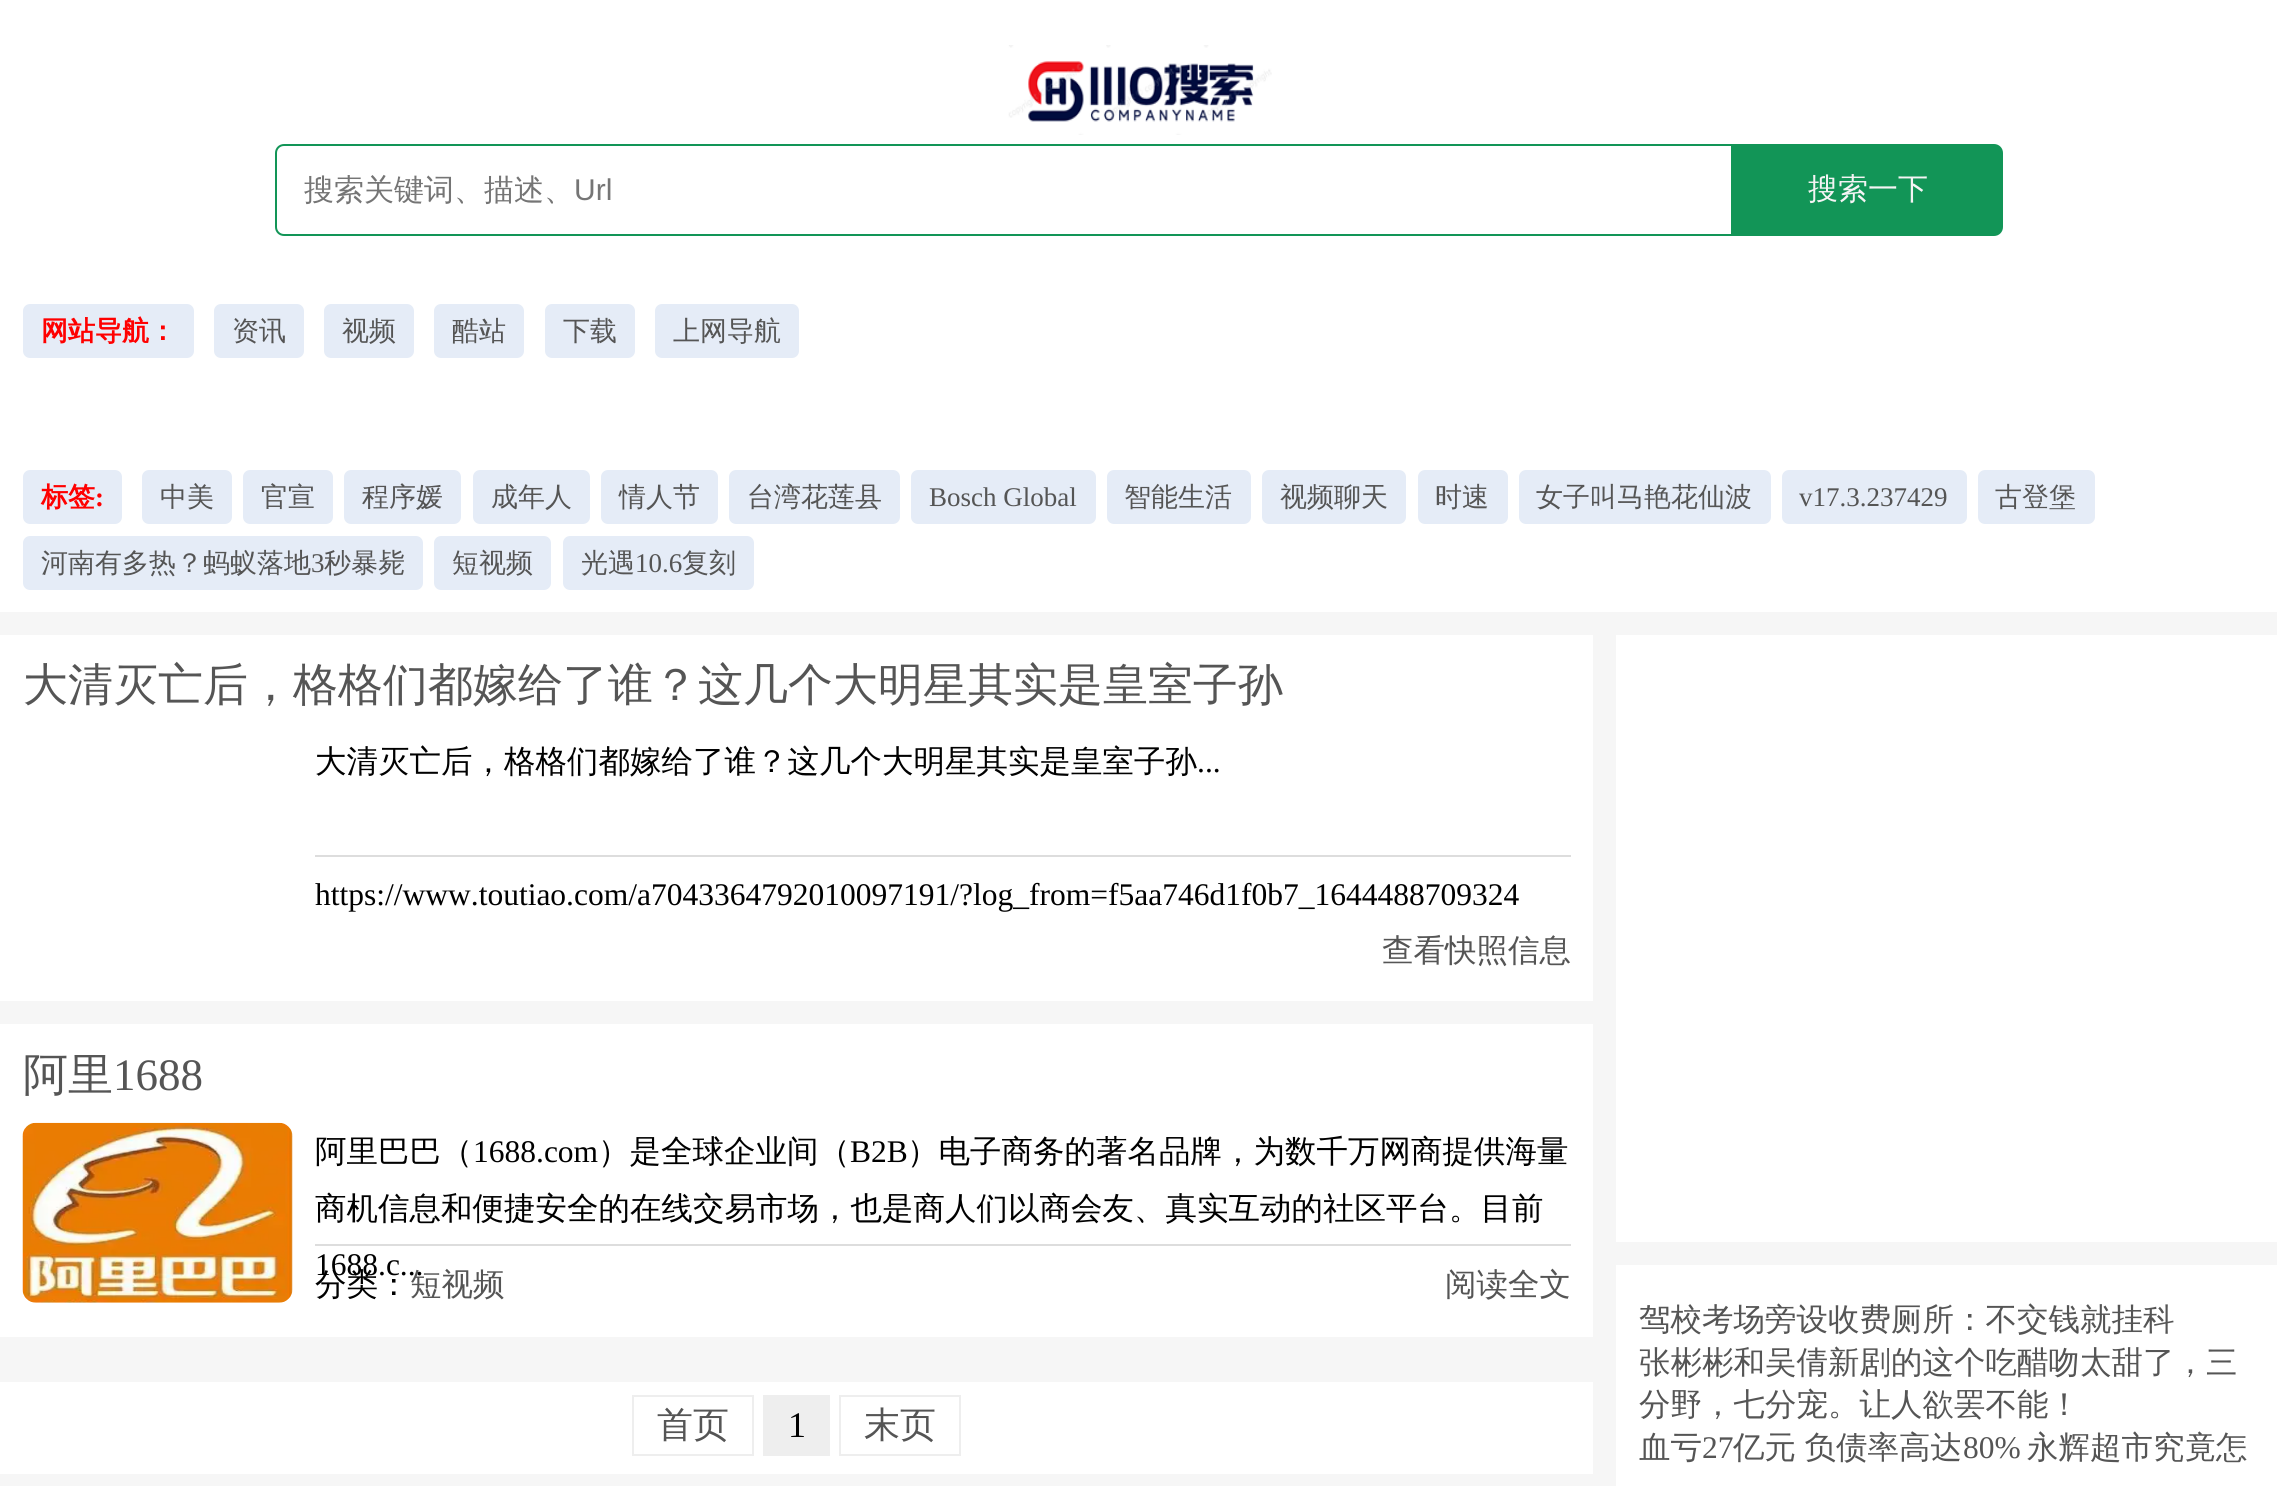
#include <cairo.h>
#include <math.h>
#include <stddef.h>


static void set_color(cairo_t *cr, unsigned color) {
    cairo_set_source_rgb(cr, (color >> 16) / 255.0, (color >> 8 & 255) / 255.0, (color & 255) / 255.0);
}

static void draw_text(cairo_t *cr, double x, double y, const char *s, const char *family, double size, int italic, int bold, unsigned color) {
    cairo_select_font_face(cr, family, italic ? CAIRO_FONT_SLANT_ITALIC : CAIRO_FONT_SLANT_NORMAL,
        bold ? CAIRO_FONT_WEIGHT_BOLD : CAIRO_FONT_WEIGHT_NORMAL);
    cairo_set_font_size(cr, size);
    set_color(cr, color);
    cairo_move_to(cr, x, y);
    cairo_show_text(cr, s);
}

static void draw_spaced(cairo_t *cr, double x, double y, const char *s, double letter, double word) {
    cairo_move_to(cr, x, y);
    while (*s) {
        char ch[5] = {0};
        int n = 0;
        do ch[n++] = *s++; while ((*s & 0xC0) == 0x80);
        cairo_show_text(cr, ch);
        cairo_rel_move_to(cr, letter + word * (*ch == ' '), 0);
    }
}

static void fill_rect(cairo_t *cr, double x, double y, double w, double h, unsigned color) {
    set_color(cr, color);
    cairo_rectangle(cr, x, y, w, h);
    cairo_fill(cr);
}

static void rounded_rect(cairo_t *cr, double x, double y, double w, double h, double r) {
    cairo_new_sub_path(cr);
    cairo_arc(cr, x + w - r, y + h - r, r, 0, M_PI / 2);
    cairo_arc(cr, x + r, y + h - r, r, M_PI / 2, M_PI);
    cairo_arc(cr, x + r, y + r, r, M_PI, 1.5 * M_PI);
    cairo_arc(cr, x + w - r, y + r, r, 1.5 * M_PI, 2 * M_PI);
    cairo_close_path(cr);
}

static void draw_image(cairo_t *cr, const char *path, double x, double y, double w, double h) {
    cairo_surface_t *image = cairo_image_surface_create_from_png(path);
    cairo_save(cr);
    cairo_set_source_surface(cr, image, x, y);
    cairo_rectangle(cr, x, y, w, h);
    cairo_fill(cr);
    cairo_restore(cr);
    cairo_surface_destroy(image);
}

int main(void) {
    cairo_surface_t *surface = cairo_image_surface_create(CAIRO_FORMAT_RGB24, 2277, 1486);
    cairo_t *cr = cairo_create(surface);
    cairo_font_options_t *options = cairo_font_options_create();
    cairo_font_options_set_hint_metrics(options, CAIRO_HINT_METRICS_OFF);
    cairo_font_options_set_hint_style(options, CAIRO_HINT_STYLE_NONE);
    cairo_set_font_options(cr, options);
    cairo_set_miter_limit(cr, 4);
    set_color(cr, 0xF6F6F6);
    cairo_paint(cr);
    fill_rect(cr, 0, 0, 2277, 612, 0xFFFFFF);
    draw_image(cr, "assets/img1.png", 1008, 45, 264, 90);
    cairo_new_path(cr);
    cairo_move_to(cr, 284, 145);
    cairo_line_to(cr, 1732, 145);
    cairo_line_to(cr, 1732, 235);
    cairo_line_to(cr, 284, 235);
    cairo_curve_to(cr, 279.5, 235, 276, 231.5, 276, 227);
    cairo_line_to(cr, 276, 153);
    cairo_curve_to(cr, 276, 148.5, 279.5, 145, 284, 145);
    cairo_close_path(cr);
    set_color(cr, 0x129557);
    cairo_stroke(cr);
    draw_text(cr, 304, 200, "搜索关键词、描述、", "WenQuanYi Zen Hei Medium", 30, 0, 0, 0x757575);
    draw_text(cr, 574, 200, "Url", "Liberation Sans", 30, 0, 0, 0x757575);
    set_color(cr, 0x129557);
    cairo_new_path(cr);
    cairo_move_to(cr, 1734, 145);
    cairo_line_to(cr, 1994, 145);
    cairo_curve_to(cr, 1998.5, 145, 2002, 148.5, 2002, 153);
    cairo_line_to(cr, 2002, 227);
    cairo_curve_to(cr, 2002, 231.5, 1998.5, 235, 1994, 235);
    cairo_line_to(cr, 1734, 235);
    cairo_close_path(cr);
    cairo_fill_preserve(cr);
    cairo_stroke(cr);
    draw_text(cr, 1808, 199, "搜索一下", "WenQuanYi Zen Hei Medium", 30, 0, 0, 0xF4F4F4);
    set_color(cr, 0xE5ECF7);
    rounded_rect(cr, 23, 304, 171, 54, 7);
    cairo_fill(cr);
    draw_text(cr, 41, 340, "网站导航：", "WenQuanYi Zen Hei", 27, 0, 1, 0xFF0000);
    set_color(cr, 0xE5ECF7);
    rounded_rect(cr, 214, 304, 90, 54, 7);
    cairo_fill(cr);
    draw_text(cr, 232, 340, "资讯", "WenQuanYi Zen Hei Medium", 27, 0, 0, 0x555555);
    set_color(cr, 0xE5ECF7);
    rounded_rect(cr, 324, 304, 90, 54, 7);
    cairo_fill(cr);
    draw_text(cr, 342, 340, "视频", "WenQuanYi Zen Hei Medium", 27, 0, 0, 0x555555);
    set_color(cr, 0xE5ECF7);
    rounded_rect(cr, 434, 304, 90, 54, 7);
    cairo_fill(cr);
    draw_text(cr, 452, 340, "酷站", "WenQuanYi Zen Hei Medium", 27, 0, 0, 0x555555);
    set_color(cr, 0xE5ECF7);
    rounded_rect(cr, 545, 304, 90, 54, 7);
    cairo_fill(cr);
    draw_text(cr, 563, 340, "下载", "WenQuanYi Zen Hei Medium", 27, 0, 0, 0x555555);
    set_color(cr, 0xE5ECF7);
    rounded_rect(cr, 655, 304, 144, 54, 7);
    cairo_fill(cr);
    draw_text(cr, 673, 340, "上网导航", "WenQuanYi Zen Hei Medium", 27, 0, 0, 0x555555);
    set_color(cr, 0xE5ECF7);
    rounded_rect(cr, 23, 470, 99, 54, 7);
    cairo_fill(cr);
    draw_text(cr, 41, 506, "标签", "WenQuanYi Zen Hei", 27, 0, 1, 0xFF0000);
    draw_text(cr, 95, 506, ":", "Liberation Serif", 27, 0, 1, 0xFF0000);
    set_color(cr, 0xE5ECF7);
    rounded_rect(cr, 142, 470, 90, 54, 7);
    cairo_fill(cr);
    draw_text(cr, 160, 506, "中美", "WenQuanYi Zen Hei Medium", 27, 0, 0, 0x555555);
    set_color(cr, 0xE5ECF7);
    rounded_rect(cr, 243, 470, 90, 54, 7);
    cairo_fill(cr);
    draw_text(cr, 261, 506, "官宣", "WenQuanYi Zen Hei Medium", 27, 0, 0, 0x555555);
    set_color(cr, 0xE5ECF7);
    rounded_rect(cr, 344, 470, 117, 54, 7);
    cairo_fill(cr);
    draw_text(cr, 362, 506, "程序媛", "WenQuanYi Zen Hei Medium", 27, 0, 0, 0x555555);
    set_color(cr, 0xE5ECF7);
    rounded_rect(cr, 473, 470, 117, 54, 7);
    cairo_fill(cr);
    draw_text(cr, 491, 506, "成年人", "WenQuanYi Zen Hei Medium", 27, 0, 0, 0x555555);
    set_color(cr, 0xE5ECF7);
    rounded_rect(cr, 601, 470, 117, 54, 7);
    cairo_fill(cr);
    draw_text(cr, 619, 506, "情人节", "WenQuanYi Zen Hei Medium", 27, 0, 0, 0x555555);
    set_color(cr, 0xE5ECF7);
    rounded_rect(cr, 729, 470, 171, 54, 7);
    cairo_fill(cr);
    draw_text(cr, 747, 506, "台湾花莲县", "WenQuanYi Zen Hei Medium", 27, 0, 0, 0x555555);
    set_color(cr, 0xE5ECF7);
    rounded_rect(cr, 911, 470, 185, 54, 7);
    cairo_fill(cr);
    draw_text(cr, 929, 506, "Bosch Global", "Liberation Serif", 27, 0, 0, 0x555555);
    set_color(cr, 0xE5ECF7);
    rounded_rect(cr, 1107, 470, 144, 54, 7);
    cairo_fill(cr);
    draw_text(cr, 1124, 506, "智能生活", "WenQuanYi Zen Hei Medium", 27, 0, 0, 0x555555);
    set_color(cr, 0xE5ECF7);
    rounded_rect(cr, 1262, 470, 144, 54, 7);
    cairo_fill(cr);
    draw_text(cr, 1280, 506, "视频聊天", "WenQuanYi Zen Hei Medium", 27, 0, 0, 0x555555);
    set_color(cr, 0xE5ECF7);
    rounded_rect(cr, 1418, 470, 90, 54, 7);
    cairo_fill(cr);
    draw_text(cr, 1435, 506, "时速", "WenQuanYi Zen Hei Medium", 27, 0, 0, 0x555555);
    set_color(cr, 0xE5ECF7);
    rounded_rect(cr, 1519, 470, 252, 54, 7);
    cairo_fill(cr);
    draw_text(cr, 1536, 506, "女子叫马艳花仙波", "WenQuanYi Zen Hei Medium", 27, 0, 0, 0x555555);
    set_color(cr, 0xE5ECF7);
    rounded_rect(cr, 1782, 470, 185, 54, 7);
    cairo_fill(cr);
    draw_text(cr, 1799, 506, "v17.3.237429", "Liberation Serif", 27, 0, 0, 0x555555);
    set_color(cr, 0xE5ECF7);
    rounded_rect(cr, 1978, 470, 117, 54, 7);
    cairo_fill(cr);
    draw_text(cr, 1995, 506, "古登堡", "WenQuanYi Zen Hei Medium", 27, 0, 0, 0x555555);
    set_color(cr, 0xE5ECF7);
    rounded_rect(cr, 23, 536, 400, 54, 7);
    cairo_fill(cr);
    draw_text(cr, 41, 572, "河南有多热？蚂蚁落地", "WenQuanYi Zen Hei Medium", 27, 0, 0, 0x555555);
    draw_text(cr, 311, 572, "3", "Liberation Serif", 27, 0, 0, 0x555555);
    draw_text(cr, 324, 572, "秒暴毙", "WenQuanYi Zen Hei Medium", 27, 0, 0, 0x555555);
    set_color(cr, 0xE5ECF7);
    rounded_rect(cr, 434, 536, 117, 54, 7);
    cairo_fill(cr);
    draw_text(cr, 452, 572, "短视频", "WenQuanYi Zen Hei Medium", 27, 0, 0, 0x555555);
    set_color(cr, 0xE5ECF7);
    rounded_rect(cr, 563, 536, 191, 54, 7);
    cairo_fill(cr);
    draw_text(cr, 581, 572, "光遇", "WenQuanYi Zen Hei Medium", 27, 0, 0, 0x555555);
    draw_text(cr, 635, 572, "10.6", "Liberation Serif", 27, 0, 0, 0x555555);
    draw_text(cr, 682, 572, "复刻", "WenQuanYi Zen Hei Medium", 27, 0, 0, 0x555555);
    fill_rect(cr, 0, 635, 1593, 366, 0xFFFFFF);
    draw_text(cr, 23, 700, "大清灭亡后，格格们都嫁给了谁？这几个大明星其实是皇室子孙", "WenQuanYi Zen Hei Medium", 45, 0, 0, 0x555555);
    draw_text(cr, 315, 772, "大清灭亡后，格格们都嫁给了谁？这几个大明星其实是皇室子孙", "WenQuanYi Zen Hei Medium", 31.5, 0, 0, 0x000000);
    draw_text(cr, 1197, 772, "...", "Liberation Serif", 31.5, 0, 0, 0x000000);
    fill_rect(cr, 315, 855, 1256, 2, 0xDDDDDD);
    draw_text(cr, 315, 905, "https://www.toutiao.com/a7043364792010097191/?log_from=f5aa746d1f0b7_1644488709324", "Liberation Serif", 31.5, 0, 0, 0x000000);
    draw_text(cr, 1382, 961, "查看快照信息", "WenQuanYi Zen Hei Medium", 31.5, 0, 0, 0x555555);
    fill_rect(cr, 0, 1024, 1593, 313, 0xFFFFFF);
    draw_text(cr, 23, 1090, "阿里", "WenQuanYi Zen Hei Medium", 45, 0, 0, 0x555555);
    draw_text(cr, 113, 1090, "1688", "Liberation Serif", 45, 0, 0, 0x555555);
    draw_image(cr, "assets/img2.png", 22, 1122, 271, 181);
    draw_text(cr, 315, 1162, "阿里巴巴（", "WenQuanYi Zen Hei Medium", 31.5, 0, 0, 0x000000);
    draw_text(cr, 473, 1162, "1688.com", "Liberation Serif", 31.5, 0, 0, 0x000000);
    draw_text(cr, 598, 1162, "）是全球企业间（", "WenQuanYi Zen Hei Medium", 31.5, 0, 0, 0x000000);
    draw_text(cr, 850, 1162, "B2B", "Liberation Serif", 31.5, 0, 0, 0x000000);
    draw_text(cr, 907, 1162, "）电子商务的著名品牌，为数千万网商提供海量", "WenQuanYi Zen Hei Medium", 31.5, 0, 0, 0x000000);
    draw_text(cr, 315, 1219, "商机信息和便捷安全的在线交易市场，也是商人们以商会友、真实互动的社区平台。目前", "WenQuanYi Zen Hei Medium", 31.5, 0, 0, 0x000000);
    draw_text(cr, 315, 1275, "1688.c...", "Liberation Serif", 31.5, 0, 0, 0x000000);
    fill_rect(cr, 315, 1244, 1256, 2, 0xDDDDDD);
    draw_text(cr, 315, 1295, "分类：", "WenQuanYi Zen Hei Medium", 31.5, 0, 0, 0x000000);
    draw_text(cr, 410, 1295, "短视频", "WenQuanYi Zen Hei Medium", 31.5, 0, 0, 0x555555);
    draw_text(cr, 1445, 1295, "阅读全文", "WenQuanYi Zen Hei Medium", 31.5, 0, 0, 0x555555);
    fill_rect(cr, 0, 1382, 1593, 92, 0xFFFFFF);
    cairo_rectangle(cr, 633, 1396, 120, 59);
    set_color(cr, 0xEEEEEE);
    cairo_stroke(cr);
    draw_text(cr, 657, 1437, "首页", "WenQuanYi Zen Hei Medium", 36, 0, 0, 0x555555);
    fill_rect(cr, 763, 1395, 67, 61, 0xEEEEEE);
    draw_text(cr, 788, 1437, "1", "Liberation Serif", 36, 0, 0, 0x000000);
    cairo_rectangle(cr, 840, 1396, 120, 59);
    set_color(cr, 0xEEEEEE);
    cairo_stroke(cr);
    draw_text(cr, 864, 1437, "末页", "WenQuanYi Zen Hei Medium", 36, 0, 0, 0x555555);
    fill_rect(cr, 1616, 635, 661, 607, 0xFFFFFF);
    fill_rect(cr, 1616, 1265, 661, 221, 0xFFFFFF);
    draw_text(cr, 1639, 1330, "驾校考场旁设收费厕所：不交钱就挂科", "WenQuanYi Zen Hei Medium", 31.5, 0, 0, 0x555555);
    draw_text(cr, 1639, 1373, "张彬彬和吴倩新剧的这个吃醋吻太甜了，三", "WenQuanYi Zen Hei Medium", 31.5, 0, 0, 0x555555);
    draw_text(cr, 1639, 1415, "分野，七分宠。让人欲罢不能！", "WenQuanYi Zen Hei Medium", 31.5, 0, 0, 0x555555);
    draw_text(cr, 1639, 1458, "血亏", "WenQuanYi Zen Hei Medium", 31.5, 0, 0, 0x555555);
    draw_text(cr, 1702, 1458, "27", "Liberation Serif", 31.5, 0, 0, 0x555555);
    cairo_select_font_face(cr, "WenQuanYi Zen Hei Medium", CAIRO_FONT_SLANT_NORMAL, CAIRO_FONT_WEIGHT_NORMAL);
    draw_spaced(cr, 1733, 1458, "亿元 负债率高达", 0, -1);
    draw_text(cr, 1963, 1458, "80%", "Liberation Serif", 31.5, 0, 0, 0x555555);
    draw_text(cr, 2027, 1458, "永辉超市究竟怎", "WenQuanYi Zen Hei Medium", 31.5, 0, 0, 0x555555);
    cairo_surface_write_to_png(surface, "output.png");
    cairo_font_options_destroy(options);
    cairo_destroy(cr);
    cairo_surface_destroy(surface);
    return 0;
}
